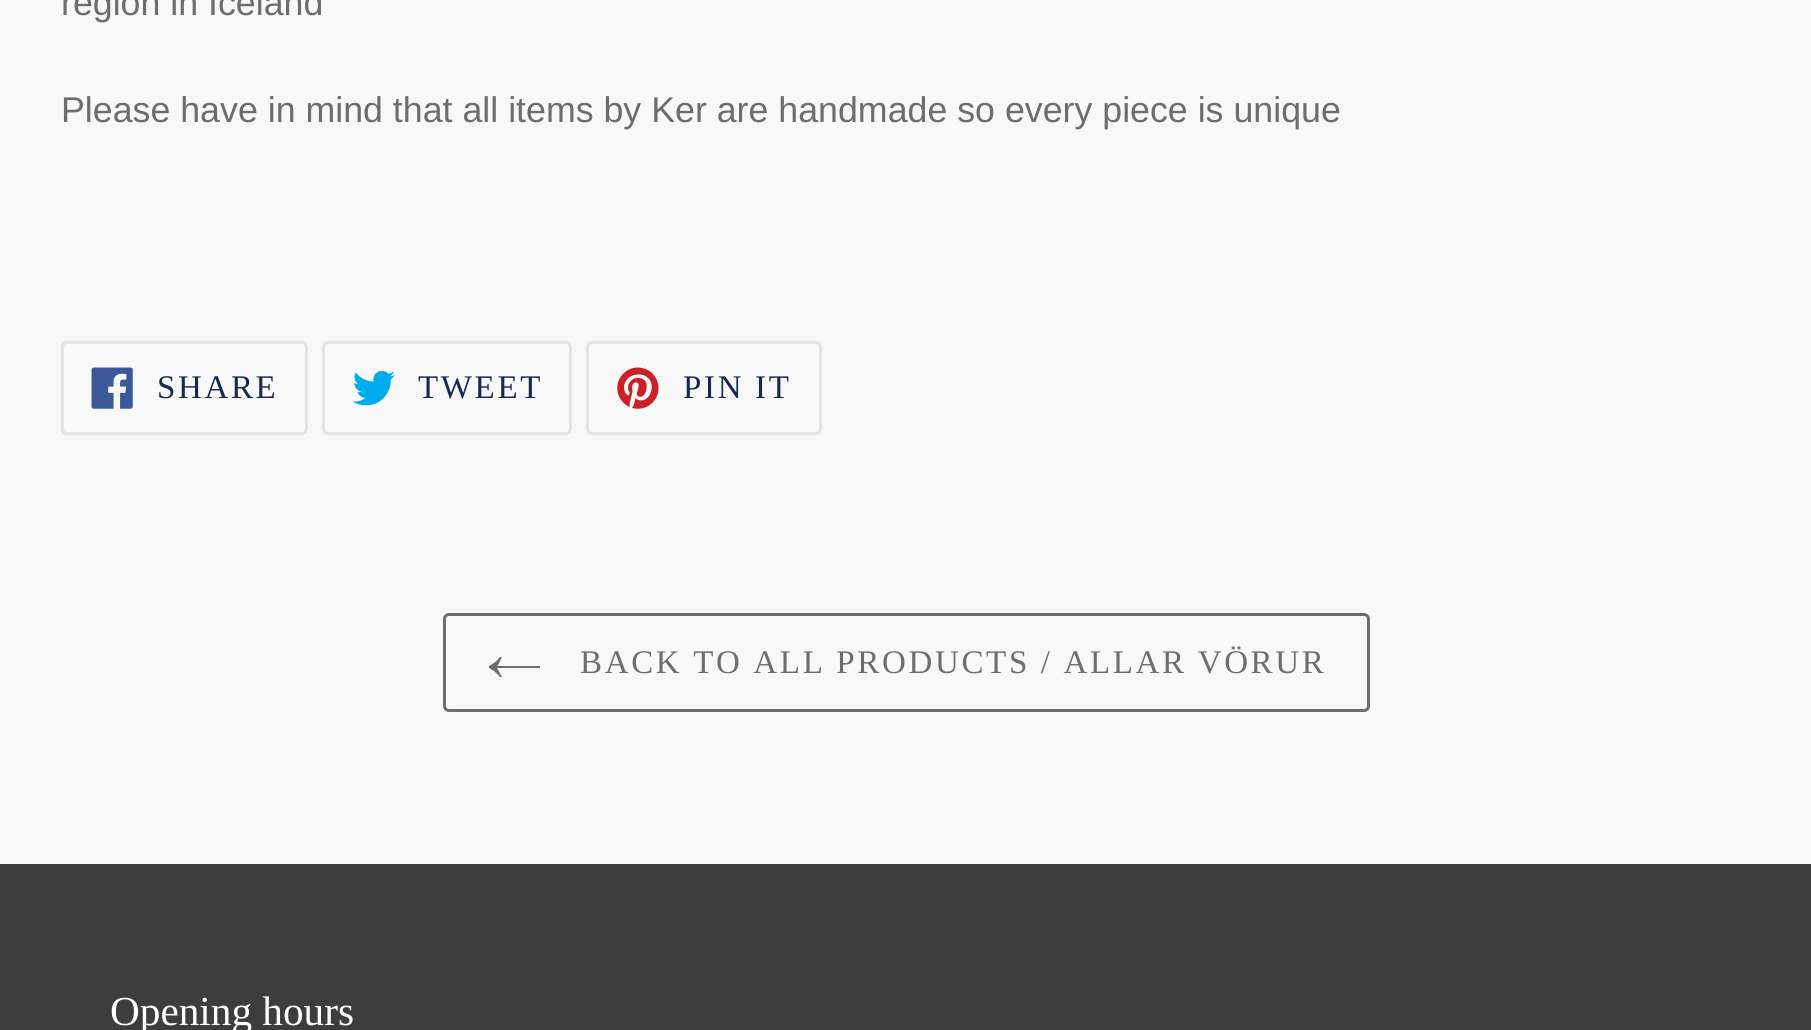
#include <cairo.h>
#include <math.h>
#include <stddef.h>


static void set_color(cairo_t *cr, unsigned color) {
    cairo_set_source_rgb(cr, (color >> 16) / 255.0, (color >> 8 & 255) / 255.0, (color & 255) / 255.0);
}

static void draw_text(cairo_t *cr, double x, double y, const char *s, const char *family, double size, int italic, int bold, unsigned color) {
    cairo_select_font_face(cr, family, italic ? CAIRO_FONT_SLANT_ITALIC : CAIRO_FONT_SLANT_NORMAL,
        bold ? CAIRO_FONT_WEIGHT_BOLD : CAIRO_FONT_WEIGHT_NORMAL);
    cairo_set_font_size(cr, size);
    set_color(cr, color);
    cairo_move_to(cr, x, y);
    cairo_show_text(cr, s);
}

static void draw_spaced(cairo_t *cr, double x, double y, const char *s, double letter, double word) {
    cairo_move_to(cr, x, y);
    while (*s) {
        char ch[5] = {0};
        int n = 0;
        do ch[n++] = *s++; while ((*s & 0xC0) == 0x80);
        cairo_show_text(cr, ch);
        cairo_rel_move_to(cr, letter + word * (*ch == ' '), 0);
    }
}

static void fill_rect(cairo_t *cr, double x, double y, double w, double h, unsigned color) {
    set_color(cr, color);
    cairo_rectangle(cr, x, y, w, h);
    cairo_fill(cr);
}

static void rounded_rect(cairo_t *cr, double x, double y, double w, double h, double r) {
    cairo_new_sub_path(cr);
    cairo_arc(cr, x + w - r, y + h - r, r, 0, M_PI / 2);
    cairo_arc(cr, x + r, y + h - r, r, M_PI / 2, M_PI);
    cairo_arc(cr, x + r, y + r, r, M_PI, 1.5 * M_PI);
    cairo_arc(cr, x + w - r, y + r, r, 1.5 * M_PI, 2 * M_PI);
    cairo_close_path(cr);
}

static void draw_image(cairo_t *cr, const char *path, double x, double y, double w, double h) {
    cairo_surface_t *image = cairo_image_surface_create_from_png(path);
    cairo_save(cr);
    cairo_set_source_surface(cr, image, x, y);
    cairo_rectangle(cr, x, y, w, h);
    cairo_fill(cr);
    cairo_restore(cr);
    cairo_surface_destroy(image);
}

int main(void) {
    cairo_surface_t *surface = cairo_image_surface_create(CAIRO_FORMAT_RGB24, 1811, 1030);
    cairo_t *cr = cairo_create(surface);
    cairo_font_options_t *options = cairo_font_options_create();
    cairo_font_options_set_hint_metrics(options, CAIRO_HINT_METRICS_OFF);
    cairo_font_options_set_hint_style(options, CAIRO_HINT_STYLE_NONE);
    cairo_set_font_options(cr, options);
    cairo_set_miter_limit(cr, 4);
    set_color(cr, 0xF8F8F8);
    cairo_paint(cr);
    draw_text(cr, 61, 15, "region in Iceland", "Liberation Sans", 35.75, 0, 0, 0x6D6D6D);
    draw_text(cr, 61, 122, "Please have in mind that all items by Ker are handmade so every piece is unique", "Liberation Sans", 35.75, 0, 0, 0x6D6D6D);
    rounded_rect(cr, 62.5, 342.5, 244, 91, 4.5);
    set_color(cr, 0xE4E4E4);
    cairo_set_line_width(cr, 3);
    cairo_stroke(cr);
    draw_image(cr, "assets/img1.png", 91, 367, 42, 42);
    cairo_select_font_face(cr, "Liberation Serif", CAIRO_FONT_SLANT_NORMAL, CAIRO_FONT_WEIGHT_NORMAL);
    cairo_set_font_size(cr, 33);
    set_color(cr, 0x162950);
    draw_spaced(cr, 157, 398, "SHARE", 2.65, 0);
    rounded_rect(cr, 323.5, 342.5, 247, 91, 4.5);
    set_color(cr, 0xE4E4E4);
    cairo_stroke(cr);
    draw_image(cr, "assets/img2.png", 352, 370, 43, 36);
    set_color(cr, 0x162950);
    draw_spaced(cr, 418, 398, "TWEET", 2.65, 0);
    rounded_rect(cr, 587.5, 342.5, 233, 91, 4.5);
    set_color(cr, 0xE4E4E4);
    cairo_stroke(cr);
    draw_image(cr, "assets/img3.png", 617, 367, 42, 42);
    set_color(cr, 0x162950);
    draw_spaced(cr, 683, 398, "PIN IT", 2.65, 0);
    rounded_rect(cr, 444.5, 614.5, 924, 96, 4.5);
    set_color(cr, 0x6D6D6D);
    cairo_stroke(cr);
    cairo_set_fill_rule(cr, CAIRO_FILL_RULE_EVEN_ODD);
    cairo_new_path(cr);
    cairo_move_to(cr, 500, 677);
    cairo_curve_to(cr, 497, 673, 493, 670, 489, 668);
    cairo_line_to(cr, 489, 666);
    cairo_curve_to(cr, 493, 664, 497, 661, 500, 657);
    cairo_line_to(cr, 502, 657);
    cairo_curve_to(cr, 500, 661, 499, 664, 497, 666);
    cairo_line_to(cr, 540, 666);
    cairo_line_to(cr, 540, 668);
    cairo_line_to(cr, 497, 668);
    cairo_line_to(cr, 502, 677);
    cairo_close_path(cr);
    cairo_fill(cr);
    draw_spaced(cr, 580, 673, "BACK TO ALL PRODUCTS / ALLAR VÖRUR", 2.65, 0);
    fill_rect(cr, 0, 864, 1811, 166, 0x3D3D3D);
    draw_text(cr, 110, 1025, "Opening hours", "Liberation Serif", 41.25, 0, 0, 0xFFFFFF);
    cairo_surface_write_to_png(surface, "output.png");
    cairo_font_options_destroy(options);
    cairo_destroy(cr);
    cairo_surface_destroy(surface);
    return 0;
}
